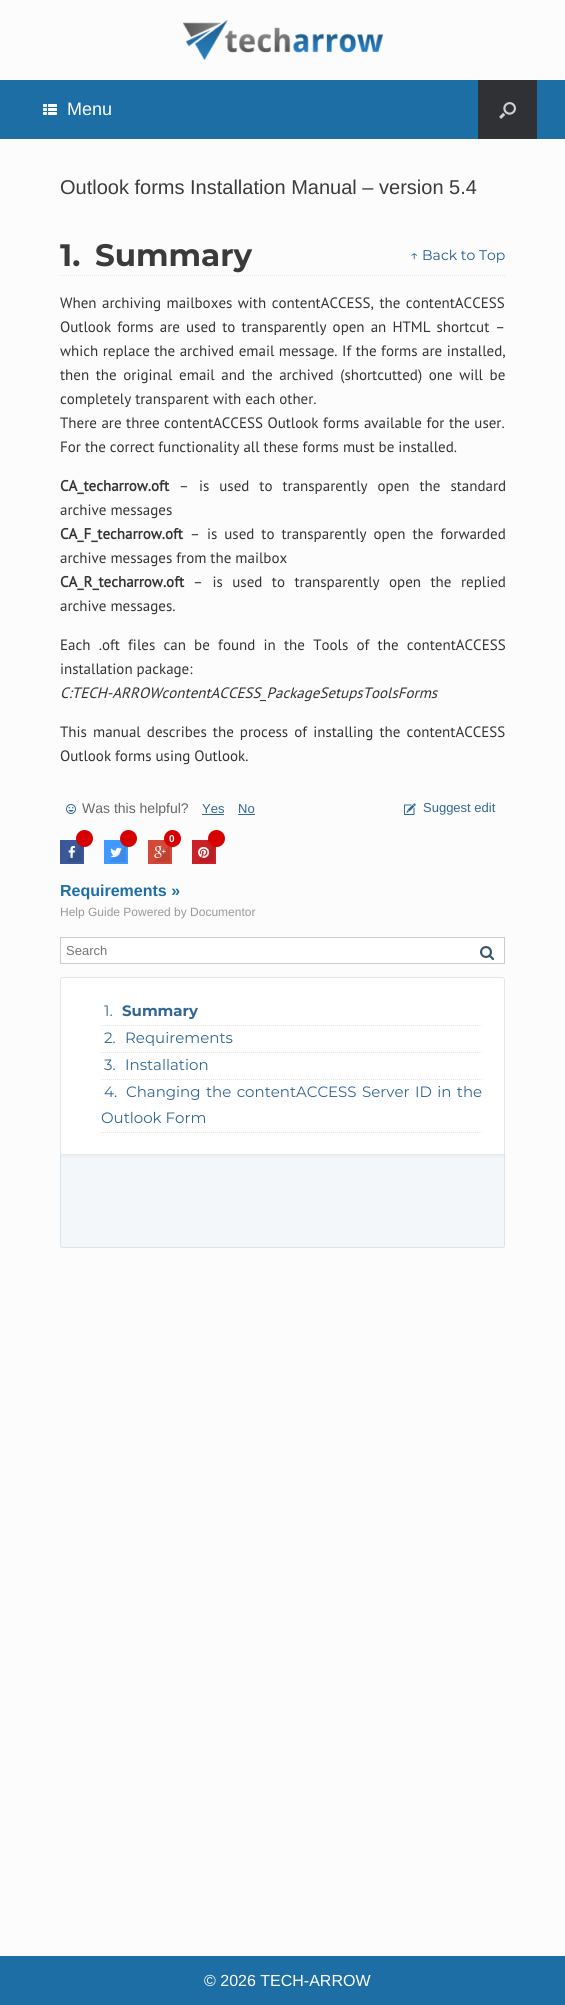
#include <cairo.h>
#include <math.h>
#include <stddef.h>


static void set_color(cairo_t *cr, unsigned color) {
    cairo_set_source_rgb(cr, (color >> 16) / 255.0, (color >> 8 & 255) / 255.0, (color & 255) / 255.0);
}

static void draw_text(cairo_t *cr, double x, double y, const char *s, const char *family, double size, int italic, int bold, unsigned color) {
    cairo_select_font_face(cr, family, italic ? CAIRO_FONT_SLANT_ITALIC : CAIRO_FONT_SLANT_NORMAL,
        bold ? CAIRO_FONT_WEIGHT_BOLD : CAIRO_FONT_WEIGHT_NORMAL);
    cairo_set_font_size(cr, size);
    set_color(cr, color);
    cairo_move_to(cr, x, y);
    cairo_show_text(cr, s);
}

static void draw_spaced(cairo_t *cr, double x, double y, const char *s, double letter, double word) {
    cairo_move_to(cr, x, y);
    while (*s) {
        char ch[5] = {0};
        int n = 0;
        do ch[n++] = *s++; while ((*s & 0xC0) == 0x80);
        cairo_show_text(cr, ch);
        cairo_rel_move_to(cr, letter + word * (*ch == ' '), 0);
    }
}

static void fill_rect(cairo_t *cr, double x, double y, double w, double h, unsigned color) {
    set_color(cr, color);
    cairo_rectangle(cr, x, y, w, h);
    cairo_fill(cr);
}

static void draw_image(cairo_t *cr, const char *path, double x, double y, double w, double h) {
    cairo_surface_t *image = cairo_image_surface_create_from_png(path);
    cairo_save(cr);
    cairo_set_source_surface(cr, image, x, y);
    cairo_rectangle(cr, x, y, w, h);
    cairo_fill(cr);
    cairo_restore(cr);
    cairo_surface_destroy(image);
}

int main(void) {
    cairo_surface_t *surface = cairo_image_surface_create(CAIRO_FORMAT_RGB24, 565, 2005);
    cairo_t *cr = cairo_create(surface);
    cairo_font_options_t *options = cairo_font_options_create();
    cairo_font_options_set_hint_metrics(options, CAIRO_HINT_METRICS_OFF);
    cairo_font_options_set_hint_style(options, CAIRO_HINT_STYLE_NONE);
    cairo_set_font_options(cr, options);
    cairo_set_miter_limit(cr, 4);
    set_color(cr, 0xFCFCFC);
    cairo_paint(cr);
    draw_image(cr, "assets/img1.png", 183, 20, 200, 40);
    fill_rect(cr, 0, 80, 565, 59, 0x1E6EA6);
    draw_image(cr, "assets/img2.png", 43, 104, 14, 11);
    draw_text(cr, 67, 115, "Menu", "Liberation Sans", 18, 0, 0, 0xFFFFFF);
    fill_rect(cr, 478, 80, 59, 59, 0x303134);
    draw_image(cr, "assets/img3.png", 499, 102, 17, 17);
    draw_text(cr, 60, 194, "Outlook forms Installation Manual – version 5.4", "Liberation Sans", 20, 0, 0, 0x3B3B3B);
    cairo_new_path(cr);
    cairo_move_to(cr, 60, 275.5);
    cairo_line_to(cr, 505, 275.5);
    set_color(cr, 0xE6E6E6);
    cairo_set_line_width(cr, 1);
    cairo_set_dash(cr, (double[]){1, 1}, 2, 0);
    cairo_stroke(cr);
    draw_text(cr, 60, 266, "1.", "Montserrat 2 Thin", 31, 0, 0, 0x3B3B3B);
    draw_text(cr, 95, 266, "Summary", "Montserrat 2 Thin", 31, 0, 0, 0x3B3B3B);
    draw_text(cr, 410, 260, "↑ Back to Top", "Montserrat Thin", 14, 0, 0, 0x255A8C);
    cairo_select_font_face(cr, "PT Sans", CAIRO_FONT_SLANT_NORMAL, CAIRO_FONT_WEIGHT_NORMAL);
    cairo_set_font_size(cr, 15);
    set_color(cr, 0x333333);
    draw_spaced(cr, 60, 308, "When archiving mailboxes with contentACCESS, the contentACCESS", 0, 1.5);
    draw_spaced(cr, 60, 332, "Outlook forms are used to transparently open an HTML shortcut –", 0, 2.1);
    draw_spaced(cr, 60, 356, "which replace the archived email message. If the forms are installed,", 0, 0.5);
    draw_spaced(cr, 60, 380, "then the original email and the archived (shortcutted) one will be", 0, 2.6);
    draw_text(cr, 60, 404, "completely transparent with each other.", "PT Sans", 15, 0, 0, 0x333333);
    draw_spaced(cr, 60, 428, "There are three", 0, 0.5);
    draw_spaced(cr, 164, 428, "contentACCESS Outlook forms available for the user.", 0, 0.5);
    draw_text(cr, 60, 452, "For the correct functionality all these forms must be installed.", "PT Sans", 15, 0, 0, 0x333333);
    draw_text(cr, 60, 491, "CA_techarrow.oft", "PT Sans", 15, 0, 1, 0x333333);
    cairo_select_font_face(cr, "PT Sans", CAIRO_FONT_SLANT_NORMAL, CAIRO_FONT_WEIGHT_NORMAL);
    draw_spaced(cr, 179, 491, "– is used to transparently open the standard", 0, 6);
    draw_text(cr, 60, 515, "archive messages", "PT Sans", 15, 0, 0, 0x333333);
    draw_text(cr, 60, 539, "CA_F_techarrow.oft", "PT Sans", 15, 0, 1, 0x333333);
    cairo_select_font_face(cr, "PT Sans", CAIRO_FONT_SLANT_NORMAL, CAIRO_FONT_WEIGHT_NORMAL);
    draw_spaced(cr, 190, 539, "– is used to transparently open the forwarded", 0, 3);
    draw_text(cr, 60, 563, "archive messages from the mailbox", "PT Sans", 15, 0, 0, 0x333333);
    draw_text(cr, 60, 587, "CA_R_techarrow.oft", "PT Sans", 15, 0, 1, 0x333333);
    cairo_select_font_face(cr, "PT Sans", CAIRO_FONT_SLANT_NORMAL, CAIRO_FONT_WEIGHT_NORMAL);
    draw_spaced(cr, 193, 587, "– is used to transparently open the replied", 0, 5.5);
    draw_text(cr, 60, 611, "archive messages.", "PT Sans", 15, 0, 0, 0x333333);
    draw_spaced(cr, 60, 650, "Each .oft files can be found in the Tools of the contentACCESS", 0, 4.25);
    draw_text(cr, 60, 674, "installation package:", "PT Sans", 15, 0, 0, 0x333333);
    draw_text(cr, 60, 698, "C:TECH-ARROWcontentACCESS_PackageSetupsToolsForms", "PT Sans", 15, 1, 0, 0x333333);
    cairo_select_font_face(cr, "PT Sans", CAIRO_FONT_SLANT_NORMAL, CAIRO_FONT_WEIGHT_NORMAL);
    draw_spaced(cr, 60, 737, "This manual describes the process of installing the contentACCESS", 0, 2.1);
    draw_text(cr, 60, 761, "Outlook forms using Outlook.", "PT Sans", 15, 0, 0, 0x333333);
    draw_image(cr, "assets/img4.png", 66, 804, 10, 10);
    draw_text(cr, 82, 813, "Was this helpful?", "Liberation Sans", 14, 0, 0, 0x666666);
    draw_text(cr, 202, 813, "Yes", "Liberation Sans", 13, 0, 0, 0x326693);
    fill_rect(cr, 202, 814, 22, 1, 0x326693);
    draw_text(cr, 238, 813, "No", "Liberation Sans", 13, 0, 0, 0x326693);
    fill_rect(cr, 238, 814, 17, 1, 0x326693);
    draw_image(cr, "assets/img5.png", 404, 803, 12, 12);
    draw_text(cr, 423, 812, "Suggest edit", "Liberation Sans", 13, 0, 0, 0x326693);
    fill_rect(cr, 60, 840, 24, 24, 0x3B5998);
    draw_image(cr, "assets/img6.png", 68, 845, 7, 13);
    cairo_save(cr);
    cairo_rectangle(cr, 62, 842, 20, 20);
    cairo_clip(cr);
    cairo_set_source_rgba(cr, 0, 0, 0, 0.1);
    cairo_new_path(cr);
    cairo_move_to(cr, 86, 841);
    cairo_line_to(cr, 99, 854);
    cairo_line_to(cr, 71, 883);
    cairo_line_to(cr, 58, 870);
    cairo_close_path(cr);
    cairo_fill(cr);
    cairo_restore(cr);
    set_color(cr, 0xD60000);
    cairo_arc(cr, 84.5, 838.5, 8.5, 0, 2 * M_PI);
    cairo_fill(cr);
    fill_rect(cr, 104, 840, 24, 24, 0x4099FF);
    draw_image(cr, "assets/img7.png", 110, 847, 12, 11);
    cairo_save(cr);
    cairo_rectangle(cr, 106, 842, 20, 20);
    cairo_clip(cr);
    cairo_set_source_rgba(cr, 0, 0, 0, 0.1);
    cairo_new_path(cr);
    cairo_move_to(cr, 130, 841);
    cairo_line_to(cr, 143, 854);
    cairo_line_to(cr, 115, 883);
    cairo_line_to(cr, 102, 870);
    cairo_close_path(cr);
    cairo_fill(cr);
    cairo_restore(cr);
    set_color(cr, 0xD60000);
    cairo_arc(cr, 128.5, 838.5, 8.5, 0, 2 * M_PI);
    cairo_fill(cr);
    fill_rect(cr, 148, 840, 24, 24, 0xD34836);
    draw_image(cr, "assets/img8.png", 154, 845, 12, 13);
    cairo_save(cr);
    cairo_rectangle(cr, 150, 842, 20, 20);
    cairo_clip(cr);
    cairo_set_source_rgba(cr, 0, 0, 0, 0.1);
    cairo_new_path(cr);
    cairo_move_to(cr, 174, 841);
    cairo_line_to(cr, 187, 854);
    cairo_line_to(cr, 159, 883);
    cairo_line_to(cr, 146, 870);
    cairo_close_path(cr);
    cairo_fill(cr);
    cairo_restore(cr);
    set_color(cr, 0xD60000);
    cairo_arc(cr, 172.5, 838.5, 8.5, 0, 2 * M_PI);
    cairo_fill(cr);
    draw_text(cr, 169, 842, "0", "Liberation Sans", 10, 0, 1, 0xFFFFFF);
    fill_rect(cr, 192, 840, 24, 24, 0xCB2027);
    draw_image(cr, "assets/img9.png", 198, 846, 12, 12);
    cairo_save(cr);
    cairo_rectangle(cr, 194, 842, 20, 20);
    cairo_clip(cr);
    cairo_set_source_rgba(cr, 0, 0, 0, 0.1);
    cairo_new_path(cr);
    cairo_move_to(cr, 218, 841);
    cairo_line_to(cr, 231, 854);
    cairo_line_to(cr, 203, 883);
    cairo_line_to(cr, 190, 870);
    cairo_close_path(cr);
    cairo_fill(cr);
    cairo_restore(cr);
    set_color(cr, 0xD60000);
    cairo_arc(cr, 216.5, 838.5, 8.5, 0, 2 * M_PI);
    cairo_fill(cr);
    draw_text(cr, 60, 896, "Requirements »", "Liberation Sans", 16, 0, 1, 0x1E6EA6);
    draw_text(cr, 60, 916, "Help Guide Powered by Documentor", "Liberation Sans", 12, 0, 0, 0x999999);
    set_color(cr, 0xFFFFFF);
    cairo_rectangle(cr, 60.5, 937.5, 444, 26);
    cairo_fill_preserve(cr);
    set_color(cr, 0xCCCCCC);
    cairo_set_dash(cr, NULL, 0, 0);
    cairo_stroke(cr);
    draw_text(cr, 66, 955, "Search", "Liberation Sans", 13, 0, 0, 0x757575);
    draw_image(cr, "assets/img10.png", 480, 946, 15, 15);
    fill_rect(cr, 60, 1155, 445, 3, 0xF6F6F6);
    set_color(cr, 0xFFFFFF);
    cairo_new_path(cr);
    cairo_move_to(cr, 63, 977.5);
    cairo_line_to(cr, 502, 977.5);
    cairo_curve_to(cr, 503.5, 977.5, 504.5, 978.5, 504.5, 980);
    cairo_line_to(cr, 504.5, 1154.5);
    cairo_line_to(cr, 60.5, 1154.5);
    cairo_line_to(cr, 60.5, 980);
    cairo_curve_to(cr, 60.5, 978.5, 61.5, 977.5, 63, 977.5);
    cairo_close_path(cr);
    cairo_fill_preserve(cr);
    set_color(cr, 0xE6E6E6);
    cairo_stroke(cr);
    draw_text(cr, 104, 1016, "1.", "Montserrat Thin", 15, 0, 0, 0x326693);
    draw_text(cr, 122, 1016, "Summary", "Montserrat 2 Thin", 15, 0, 0, 0x326693);
    cairo_new_path(cr);
    cairo_move_to(cr, 101, 1025.5);
    cairo_line_to(cr, 483, 1025.5);
    set_color(cr, 0xE6E6E6);
    cairo_set_dash(cr, (double[]){1, 1}, 2, 0);
    cairo_stroke(cr);
    draw_text(cr, 104, 1043, "2.", "Montserrat Thin", 15, 0, 0, 0x326693);
    draw_text(cr, 125, 1043, "Requirements", "Montserrat Thin", 15, 0, 0, 0x326693);
    cairo_new_path(cr);
    cairo_move_to(cr, 101, 1052.5);
    cairo_line_to(cr, 483, 1052.5);
    set_color(cr, 0xE6E6E6);
    cairo_stroke(cr);
    draw_text(cr, 104, 1070, "3.", "Montserrat Thin", 15, 0, 0, 0x326693);
    draw_text(cr, 125, 1070, "Installation", "Montserrat Thin", 15, 0, 0, 0x326693);
    cairo_new_path(cr);
    cairo_move_to(cr, 101, 1079.5);
    cairo_line_to(cr, 483, 1079.5);
    set_color(cr, 0xE6E6E6);
    cairo_stroke(cr);
    draw_text(cr, 104, 1097, "4.", "Montserrat Thin", 15, 0, 0, 0x326693);
    draw_spaced(cr, 126, 1097, "Changing the contentACCESS Server ID in the", 0, 1.5);
    draw_text(cr, 101, 1123, "Outlook Form", "Montserrat Thin", 15, 0, 0, 0x326693);
    cairo_new_path(cr);
    cairo_move_to(cr, 101, 1132.5);
    cairo_line_to(cr, 483, 1132.5);
    set_color(cr, 0xE6E6E6);
    cairo_stroke(cr);
    set_color(cr, 0xF4F7FA);
    cairo_new_path(cr);
    cairo_move_to(cr, 61, 1155);
    cairo_line_to(cr, 504, 1155);
    cairo_line_to(cr, 504, 1245);
    cairo_curve_to(cr, 504, 1246, 503, 1247, 502, 1247);
    cairo_line_to(cr, 63, 1247);
    cairo_curve_to(cr, 62, 1247, 61, 1246, 61, 1245);
    cairo_close_path(cr);
    cairo_fill(cr);
    fill_rect(cr, 61, 1155, 443, 3, 0xEEF1F4);
    cairo_set_source_rgba(cr, 0.145, 0.353, 0.549, 0.15);
    cairo_set_fill_rule(cr, CAIRO_FILL_RULE_EVEN_ODD);
    cairo_new_path(cr);
    cairo_move_to(cr, 60, 1155);
    cairo_line_to(cr, 505, 1155);
    cairo_line_to(cr, 505, 1245);
    cairo_curve_to(cr, 505, 1247, 504, 1248, 502, 1248);
    cairo_line_to(cr, 63, 1248);
    cairo_curve_to(cr, 61, 1248, 60, 1247, 60, 1245);
    cairo_close_path(cr);
    cairo_move_to(cr, 61, 1155);
    cairo_line_to(cr, 504, 1155);
    cairo_line_to(cr, 504, 1245);
    cairo_curve_to(cr, 504, 1246, 503, 1247, 502, 1247);
    cairo_line_to(cr, 63, 1247);
    cairo_curve_to(cr, 62, 1247, 61, 1246, 61, 1245);
    cairo_close_path(cr);
    cairo_fill(cr);
    fill_rect(cr, 0, 1956, 565, 49, 0x1E6EA6);
    draw_text(cr, 204, 1986, "© 2026 TECH-ARROW", "Liberation Sans", 16, 0, 0, 0xFFFFFF);
    cairo_surface_write_to_png(surface, "output.png");
    cairo_font_options_destroy(options);
    cairo_destroy(cr);
    cairo_surface_destroy(surface);
    return 0;
}
